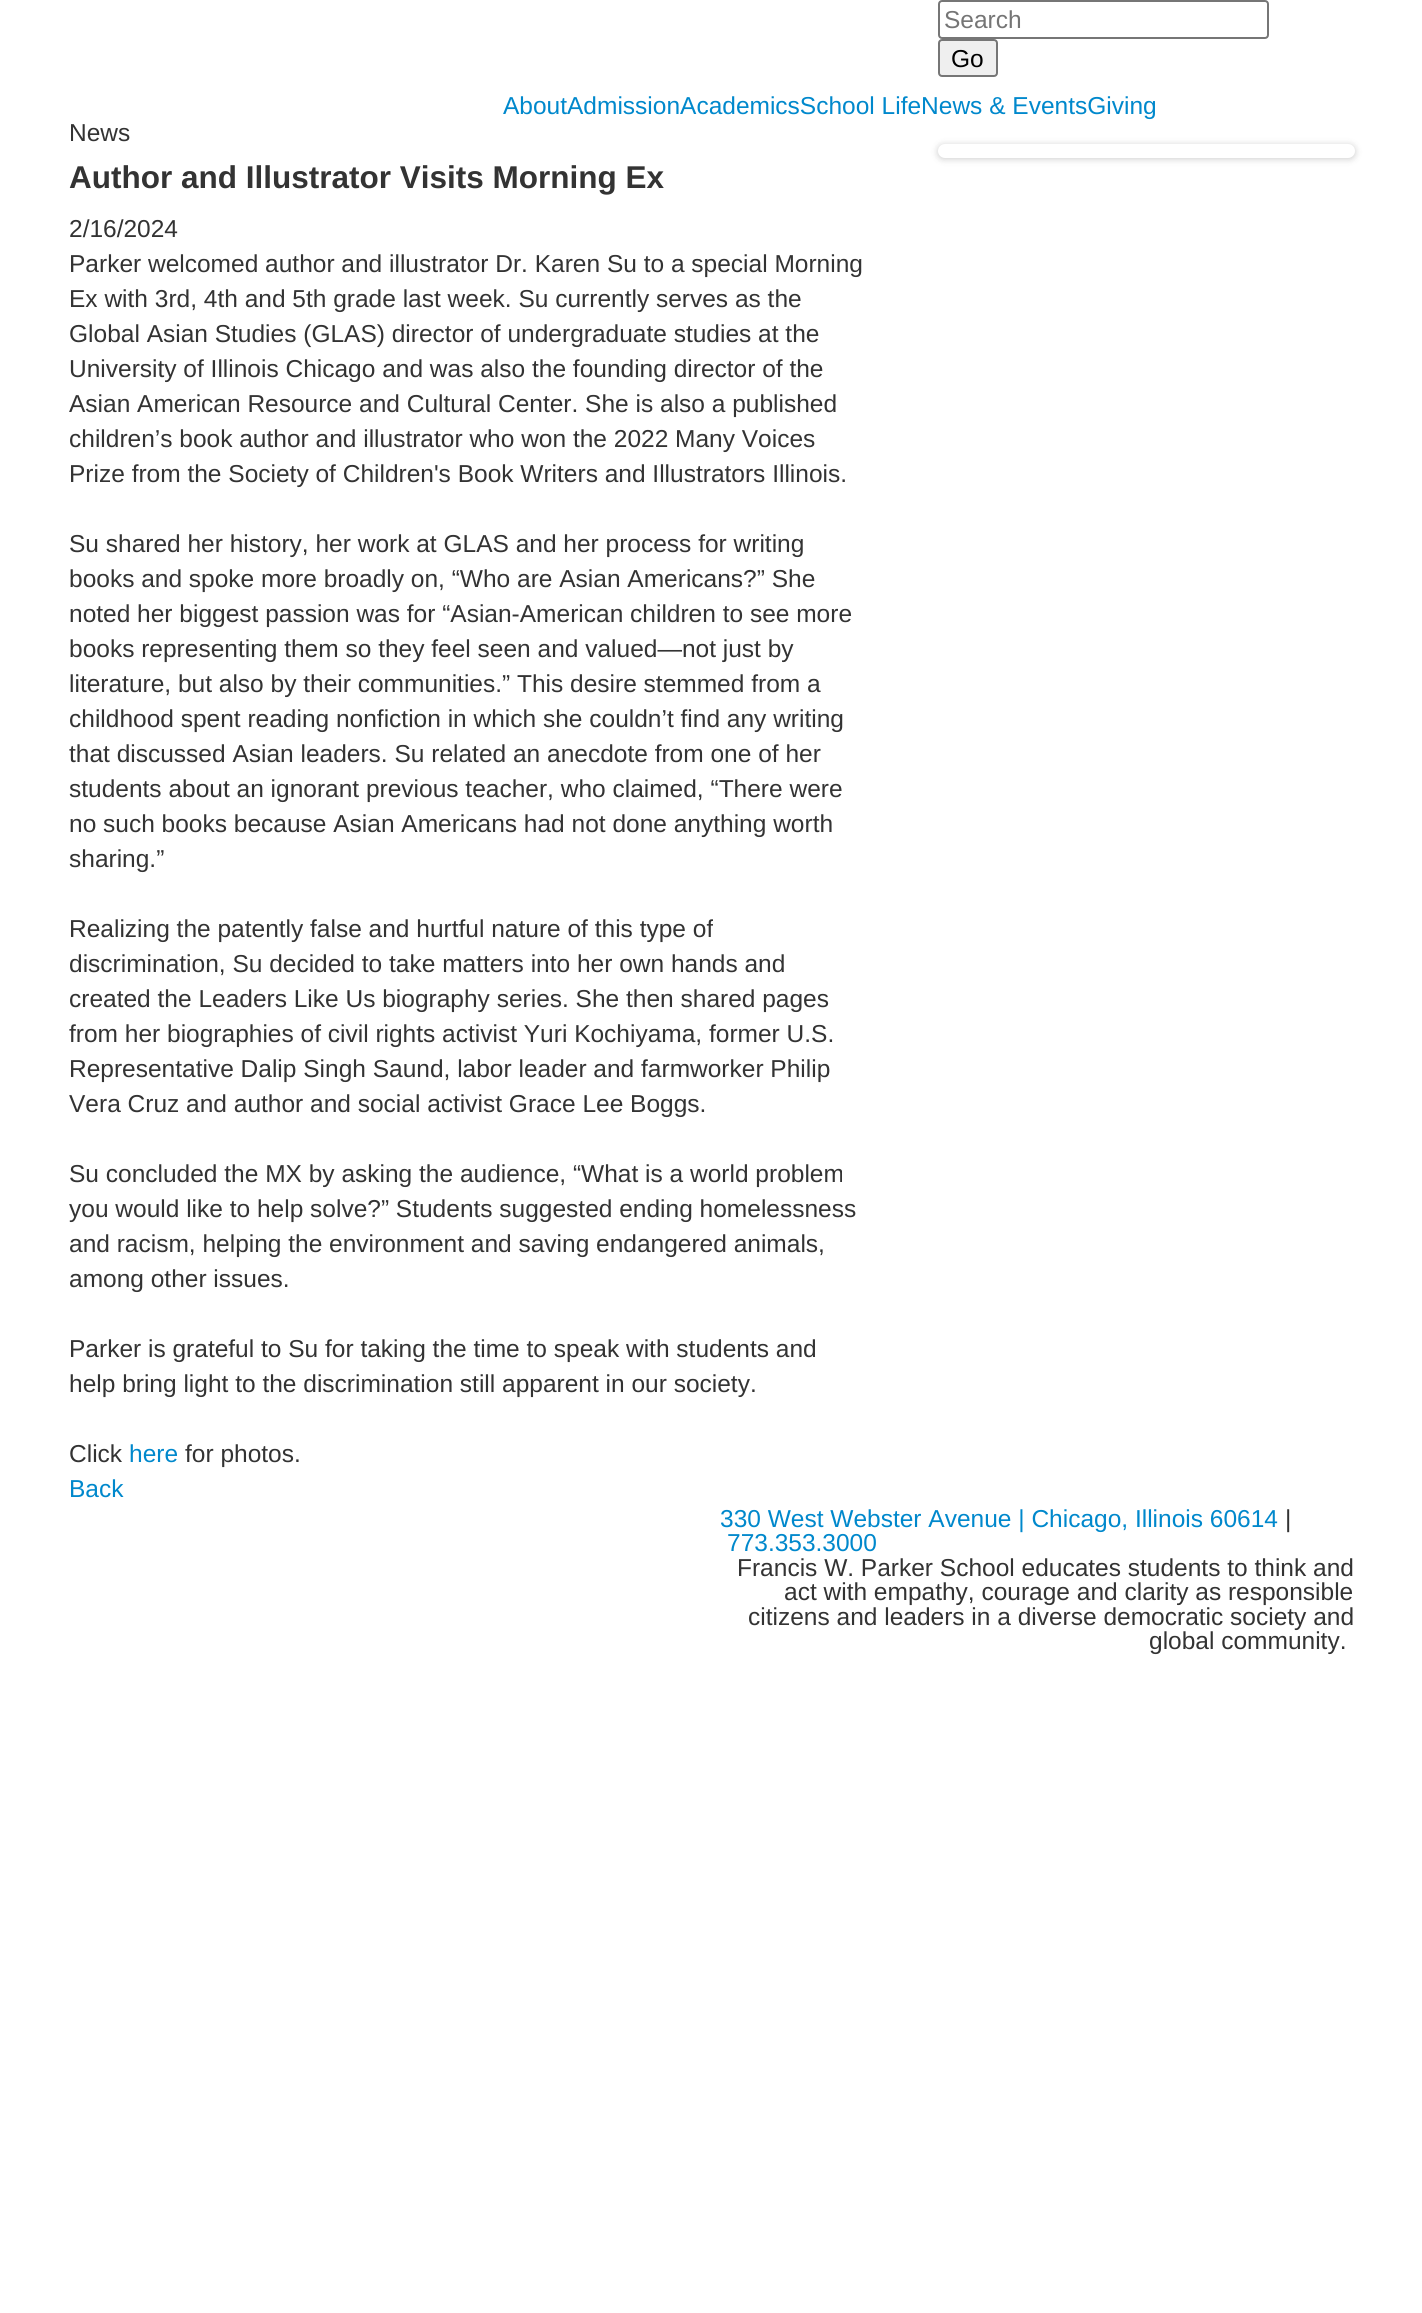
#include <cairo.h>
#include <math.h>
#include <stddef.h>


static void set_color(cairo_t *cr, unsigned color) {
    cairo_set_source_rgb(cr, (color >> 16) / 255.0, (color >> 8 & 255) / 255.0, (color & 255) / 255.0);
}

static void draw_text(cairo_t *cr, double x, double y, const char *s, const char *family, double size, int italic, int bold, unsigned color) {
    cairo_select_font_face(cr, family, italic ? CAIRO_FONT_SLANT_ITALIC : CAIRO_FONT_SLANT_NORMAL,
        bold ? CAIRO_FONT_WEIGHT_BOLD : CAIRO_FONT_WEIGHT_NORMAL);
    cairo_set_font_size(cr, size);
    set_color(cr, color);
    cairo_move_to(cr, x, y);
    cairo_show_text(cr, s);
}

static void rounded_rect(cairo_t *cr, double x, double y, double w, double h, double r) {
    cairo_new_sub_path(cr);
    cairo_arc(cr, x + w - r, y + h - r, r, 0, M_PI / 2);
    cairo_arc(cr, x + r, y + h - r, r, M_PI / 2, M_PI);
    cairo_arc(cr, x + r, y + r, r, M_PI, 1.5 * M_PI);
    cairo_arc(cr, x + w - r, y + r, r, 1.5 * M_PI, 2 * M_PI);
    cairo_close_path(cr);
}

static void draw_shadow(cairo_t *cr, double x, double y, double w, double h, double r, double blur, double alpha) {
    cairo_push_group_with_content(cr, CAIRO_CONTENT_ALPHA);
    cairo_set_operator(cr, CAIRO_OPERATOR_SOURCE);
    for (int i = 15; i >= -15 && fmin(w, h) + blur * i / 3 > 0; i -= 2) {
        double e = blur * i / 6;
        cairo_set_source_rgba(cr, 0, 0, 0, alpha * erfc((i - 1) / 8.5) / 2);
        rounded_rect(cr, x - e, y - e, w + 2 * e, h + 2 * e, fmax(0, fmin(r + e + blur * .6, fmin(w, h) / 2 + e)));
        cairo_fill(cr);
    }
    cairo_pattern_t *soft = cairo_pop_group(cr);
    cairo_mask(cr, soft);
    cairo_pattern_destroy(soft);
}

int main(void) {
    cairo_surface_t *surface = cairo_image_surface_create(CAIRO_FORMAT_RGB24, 1422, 2313);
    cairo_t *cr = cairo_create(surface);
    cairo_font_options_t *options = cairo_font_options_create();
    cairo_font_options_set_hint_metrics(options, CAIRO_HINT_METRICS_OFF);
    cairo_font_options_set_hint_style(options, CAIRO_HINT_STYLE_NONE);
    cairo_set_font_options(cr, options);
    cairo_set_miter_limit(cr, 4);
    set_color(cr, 0xFFFFFF);
    cairo_paint(cr);
    rounded_rect(cr, 939, 1, 329, 37, 3);
    set_color(cr, 0x767676);
    cairo_stroke(cr);
    draw_text(cr, 944, 28, "Search", "Liberation Sans", 24.5, 0, 0, 0x757575);
    set_color(cr, 0xEFEFEF);
    rounded_rect(cr, 939, 40, 58, 36, 3);
    cairo_fill_preserve(cr);
    set_color(cr, 0x767676);
    cairo_stroke(cr);
    draw_text(cr, 951, 67, "Go", "Liberation Sans", 24.5, 0, 0, 0x000000);
    draw_text(cr, 503, 114, "AboutAdmissionAcademicsSchool LifeNews & EventsGiving", "Liberation Sans", 24.5, 0, 0, 0x0088CC);
    draw_text(cr, 69, 141, "News", "Liberation Sans", 24.5, 0, 0, 0x333333);
    set_color(cr, 0x000000);
    draw_shadow(cr, 938, 145, 417, 14, 7, 3.5, 0.2);
    set_color(cr, 0xFFFFFF);
    rounded_rect(cr, 938, 144, 417, 14, 7);
    cairo_fill(cr);
    draw_text(cr, 69, 188, "Author and Illustrator Visits Morning Ex", "Liberation Sans", 31.5, 0, 1, 0x333333);
    draw_text(cr, 69, 237, "2/16/2024", "Liberation Sans", 24.5, 0, 0, 0x333333);
    draw_text(cr, 69, 272, "Parker welcomed author and illustrator Dr. Karen Su to a special Morning", "Liberation Sans", 24.5, 0, 0, 0x333333);
    draw_text(cr, 69, 307, "Ex with 3rd, 4th and 5th grade last week. Su currently serves as the", "Liberation Sans", 24.5, 0, 0, 0x333333);
    draw_text(cr, 69, 342, "Global Asian Studies (GLAS) director of undergraduate studies at the", "Liberation Sans", 24.5, 0, 0, 0x333333);
    draw_text(cr, 69, 377, "University of Illinois Chicago and was also the founding director of the", "Liberation Sans", 24.5, 0, 0, 0x333333);
    draw_text(cr, 69, 412, "Asian American Resource and Cultural Center. She is also a published", "Liberation Sans", 24.5, 0, 0, 0x333333);
    draw_text(cr, 69, 447, "children’s book author and illustrator who won the 2022 Many Voices", "Liberation Sans", 24.5, 0, 0, 0x333333);
    draw_text(cr, 69, 482, "Prize from the Society of Children's Book Writers and Illustrators Illinois.", "Liberation Sans", 24.5, 0, 0, 0x333333);
    draw_text(cr, 69, 552, "Su shared her history, her work at GLAS and her process for writing", "Liberation Sans", 24.5, 0, 0, 0x333333);
    draw_text(cr, 69, 587, "books and spoke more broadly on, “Who are Asian Americans?” She", "Liberation Sans", 24.5, 0, 0, 0x333333);
    draw_text(cr, 69, 622, "noted her biggest passion was for “Asian-American children to see more", "Liberation Sans", 24.5, 0, 0, 0x333333);
    draw_text(cr, 69, 657, "books representing them so they feel seen and valued—not just by", "Liberation Sans", 24.5, 0, 0, 0x333333);
    draw_text(cr, 69, 692, "literature, but also by their communities.” This desire stemmed from a", "Liberation Sans", 24.5, 0, 0, 0x333333);
    draw_text(cr, 69, 727, "childhood spent reading nonfiction in which she couldn’t find any writing", "Liberation Sans", 24.5, 0, 0, 0x333333);
    draw_text(cr, 69, 762, "that discussed Asian leaders. Su related an anecdote from one of her", "Liberation Sans", 24.5, 0, 0, 0x333333);
    draw_text(cr, 69, 797, "students about an ignorant previous teacher, who claimed, “There were", "Liberation Sans", 24.5, 0, 0, 0x333333);
    draw_text(cr, 69, 832, "no such books because Asian Americans had not done anything worth", "Liberation Sans", 24.5, 0, 0, 0x333333);
    draw_text(cr, 69, 867, "sharing.”", "Liberation Sans", 24.5, 0, 0, 0x333333);
    draw_text(cr, 69, 937, "Realizing the patently false and hurtful nature of this type of", "Liberation Sans", 24.5, 0, 0, 0x333333);
    draw_text(cr, 69, 972, "discrimination, Su decided to take matters into her own hands and", "Liberation Sans", 24.5, 0, 0, 0x333333);
    draw_text(cr, 69, 1007, "created the Leaders Like Us biography series. She then shared pages", "Liberation Sans", 24.5, 0, 0, 0x333333);
    draw_text(cr, 69, 1042, "from her biographies of civil rights activist Yuri Kochiyama, former U.S.", "Liberation Sans", 24.5, 0, 0, 0x333333);
    draw_text(cr, 69, 1077, "Representative Dalip Singh Saund, labor leader and farmworker Philip", "Liberation Sans", 24.5, 0, 0, 0x333333);
    draw_text(cr, 69, 1112, "Vera Cruz and author and social activist Grace Lee Boggs.", "Liberation Sans", 24.5, 0, 0, 0x333333);
    draw_text(cr, 69, 1182, "Su concluded the MX by asking the audience, “What is a world problem", "Liberation Sans", 24.5, 0, 0, 0x333333);
    draw_text(cr, 69, 1217, "you would like to help solve?” Students suggested ending homelessness", "Liberation Sans", 24.5, 0, 0, 0x333333);
    draw_text(cr, 69, 1252, "and racism, helping the environment and saving endangered animals,", "Liberation Sans", 24.5, 0, 0, 0x333333);
    draw_text(cr, 69, 1287, "among other issues.", "Liberation Sans", 24.5, 0, 0, 0x333333);
    draw_text(cr, 69, 1357, "Parker is grateful to Su for taking the time to speak with students and", "Liberation Sans", 24.5, 0, 0, 0x333333);
    draw_text(cr, 69, 1392, "help bring light to the discrimination still apparent in our society.", "Liberation Sans", 24.5, 0, 0, 0x333333);
    draw_text(cr, 69, 1462, "Click", "Liberation Sans", 24.5, 0, 0, 0x333333);
    draw_text(cr, 129, 1462, "here", "Liberation Sans", 24.5, 0, 0, 0x0088CC);
    draw_text(cr, 185, 1462, "for photos.", "Liberation Sans", 24.5, 0, 0, 0x333333);
    draw_text(cr, 69, 1497, "Back", "Liberation Sans", 24.5, 0, 0, 0x0088CC);
    draw_text(cr, 720, 1527, "330 West Webster Avenue | Chicago, Illinois 60614", "Liberation Sans", 24.5, 0, 0, 0x0088CC);
    draw_text(cr, 1285, 1527, "|", "Liberation Sans", 24.5, 0, 0, 0x333333);
    draw_text(cr, 727, 1551, "773.353.3000", "Liberation Sans", 24.5, 0, 0, 0x0088CC);
    draw_text(cr, 737, 1576, "Francis W. Parker School educates students to think and", "Liberation Sans", 24.5, 0, 0, 0x333333);
    draw_text(cr, 784, 1600, "act with empathy, courage and clarity as responsible", "Liberation Sans", 24.5, 0, 0, 0x333333);
    draw_text(cr, 748, 1625, "citizens and leaders in a diverse democratic society and", "Liberation Sans", 24.5, 0, 0, 0x333333);
    draw_text(cr, 1149, 1649, "global community.", "Liberation Sans", 24.5, 0, 0, 0x333333);
    cairo_surface_write_to_png(surface, "output.png");
    cairo_font_options_destroy(options);
    cairo_destroy(cr);
    cairo_surface_destroy(surface);
    return 0;
}
